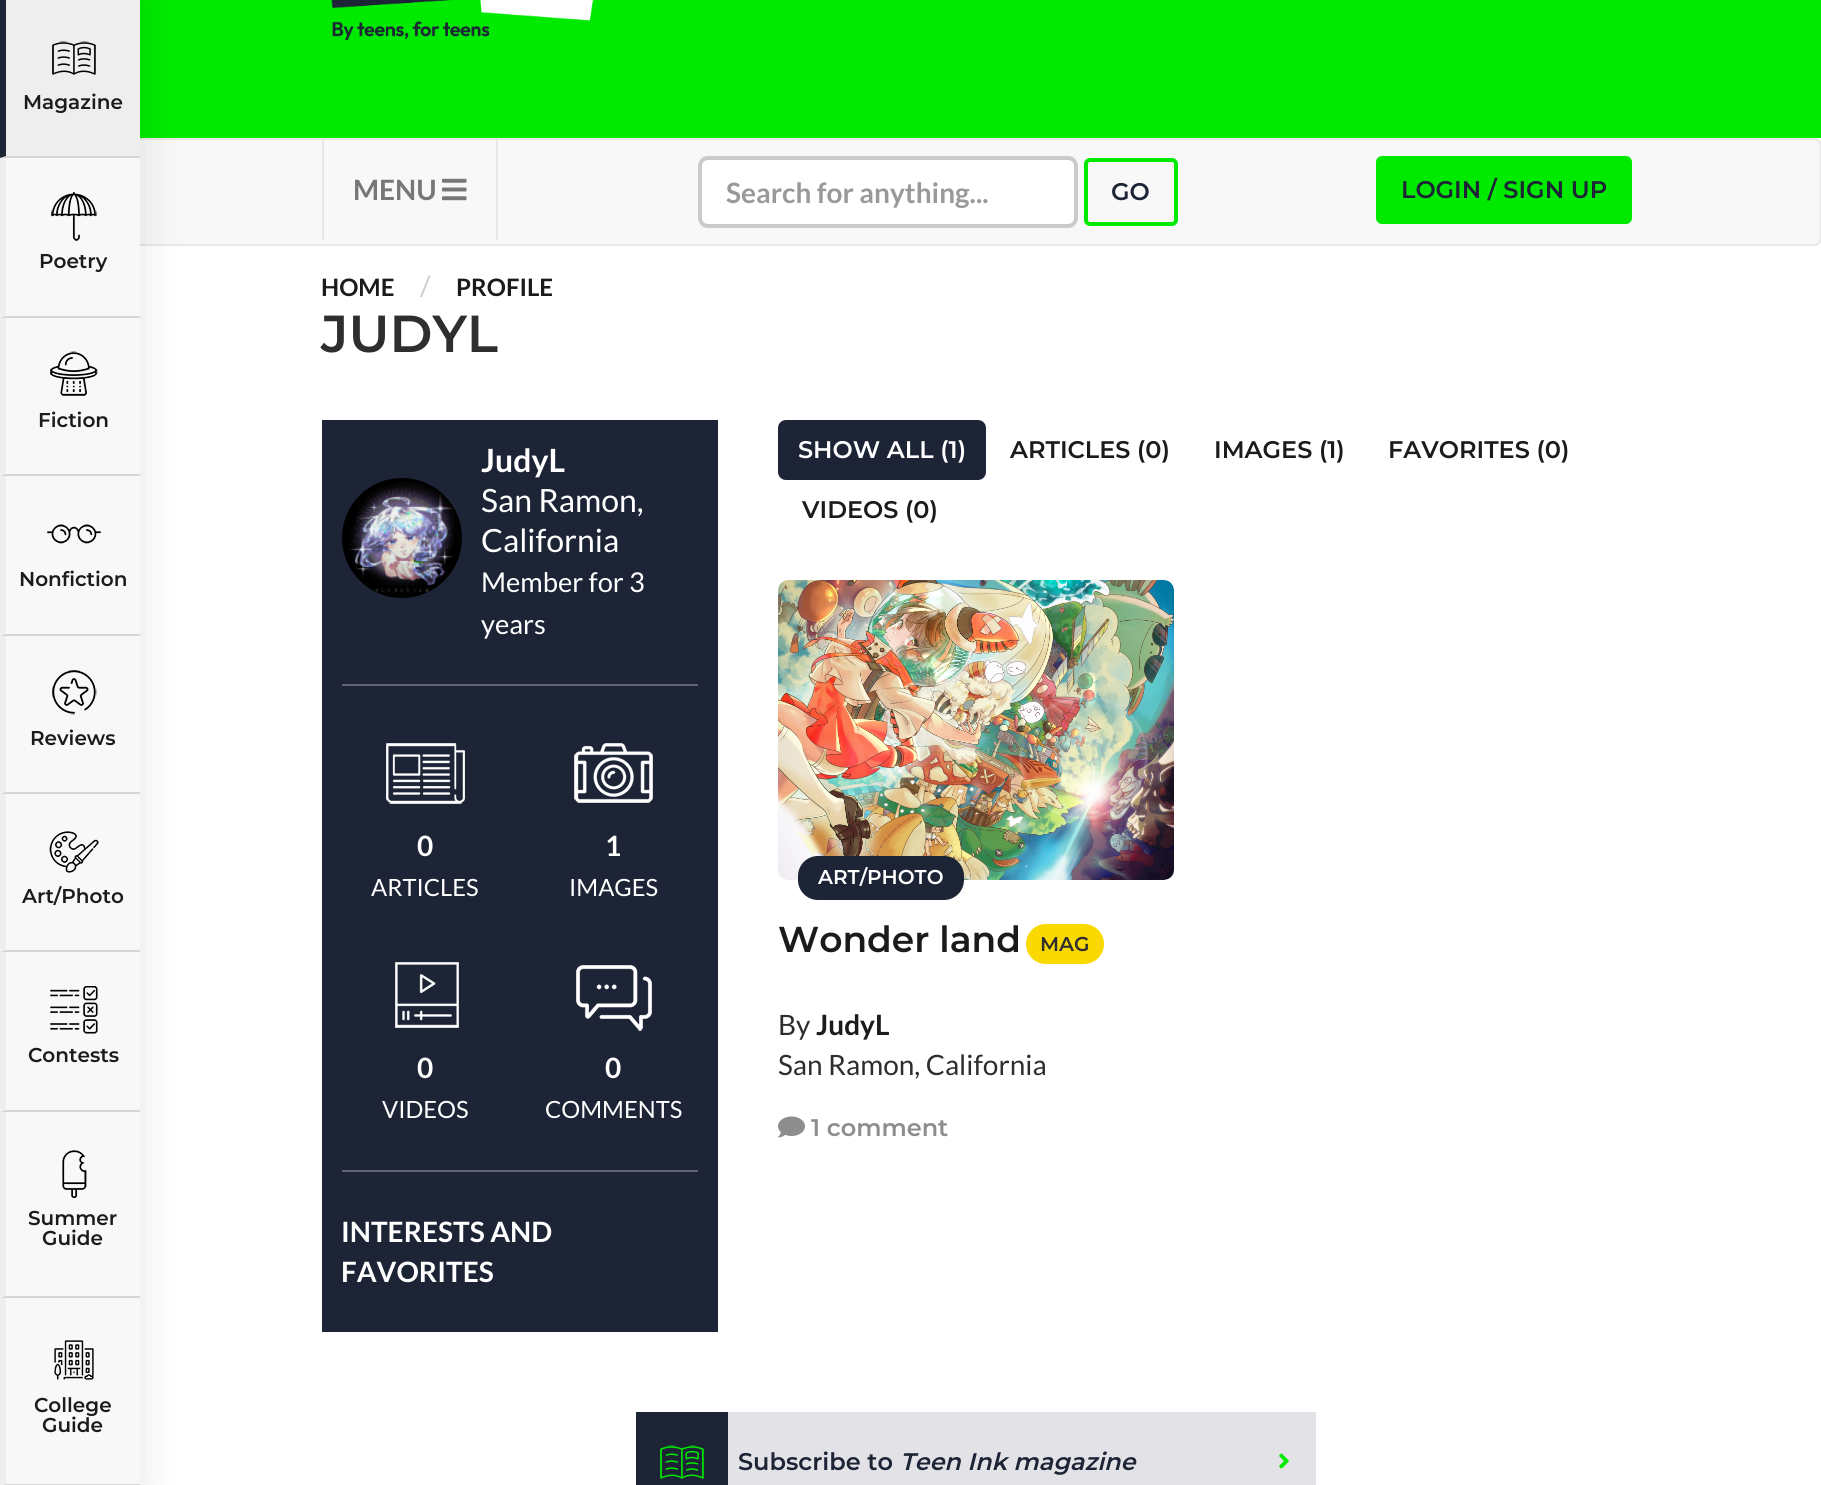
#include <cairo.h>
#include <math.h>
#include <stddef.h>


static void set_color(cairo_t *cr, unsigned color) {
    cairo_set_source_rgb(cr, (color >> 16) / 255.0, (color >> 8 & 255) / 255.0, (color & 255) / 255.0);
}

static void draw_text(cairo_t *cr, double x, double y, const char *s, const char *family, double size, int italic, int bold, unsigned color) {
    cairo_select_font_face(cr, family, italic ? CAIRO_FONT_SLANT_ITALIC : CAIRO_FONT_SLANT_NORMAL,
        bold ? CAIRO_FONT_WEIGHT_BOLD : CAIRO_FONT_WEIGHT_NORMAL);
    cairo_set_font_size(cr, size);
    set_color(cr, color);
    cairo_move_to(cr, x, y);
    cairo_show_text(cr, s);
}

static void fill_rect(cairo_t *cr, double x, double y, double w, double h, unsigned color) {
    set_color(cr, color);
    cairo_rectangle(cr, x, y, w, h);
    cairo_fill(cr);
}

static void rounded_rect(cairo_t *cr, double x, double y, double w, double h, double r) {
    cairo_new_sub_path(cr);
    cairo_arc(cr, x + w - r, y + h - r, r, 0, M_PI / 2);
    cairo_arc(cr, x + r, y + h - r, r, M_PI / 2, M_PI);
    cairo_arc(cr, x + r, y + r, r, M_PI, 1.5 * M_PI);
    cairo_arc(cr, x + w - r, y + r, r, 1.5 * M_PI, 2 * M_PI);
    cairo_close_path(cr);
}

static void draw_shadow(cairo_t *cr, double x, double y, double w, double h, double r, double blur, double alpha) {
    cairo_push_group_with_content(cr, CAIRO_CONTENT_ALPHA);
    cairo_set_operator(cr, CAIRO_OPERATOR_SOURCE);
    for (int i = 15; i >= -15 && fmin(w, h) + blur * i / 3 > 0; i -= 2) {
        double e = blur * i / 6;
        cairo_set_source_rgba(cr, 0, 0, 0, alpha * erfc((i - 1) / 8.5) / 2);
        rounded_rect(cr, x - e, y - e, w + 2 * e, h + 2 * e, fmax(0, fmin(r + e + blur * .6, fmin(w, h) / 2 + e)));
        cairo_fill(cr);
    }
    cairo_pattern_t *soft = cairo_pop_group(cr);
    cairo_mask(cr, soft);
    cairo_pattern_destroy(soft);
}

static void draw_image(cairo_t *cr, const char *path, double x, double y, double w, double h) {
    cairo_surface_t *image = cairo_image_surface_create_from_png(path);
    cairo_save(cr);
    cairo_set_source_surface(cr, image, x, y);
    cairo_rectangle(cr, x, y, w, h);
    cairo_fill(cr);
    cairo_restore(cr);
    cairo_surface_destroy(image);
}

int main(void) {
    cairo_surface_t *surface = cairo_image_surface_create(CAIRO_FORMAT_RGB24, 1821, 1485);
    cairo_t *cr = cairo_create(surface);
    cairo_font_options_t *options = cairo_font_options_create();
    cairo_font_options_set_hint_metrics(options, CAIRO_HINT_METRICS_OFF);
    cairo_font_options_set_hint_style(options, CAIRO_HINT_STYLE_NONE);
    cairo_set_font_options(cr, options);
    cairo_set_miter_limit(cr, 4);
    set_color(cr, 0xFFFFFF);
    cairo_paint(cr);
    fill_rect(cr, 140, 0, 1681, 138, 0x00EA00);
    draw_image(cr, "assets/img1.png", 331, 0, 262, 40);
    set_color(cr, 0xF8F8F8);
    rounded_rect(cr, 1, 139, 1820, 106, 7);
    cairo_fill_preserve(cr);
    set_color(cr, 0xE7E7E7);
    cairo_stroke(cr);
    set_color(cr, 0x000000);
    draw_shadow(cr, -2, -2, 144, 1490, 0, 20, 0.1);
    fill_rect(cr, 0, 156, 140, 1328, 0xF8F8F8);
    fill_rect(cr, 6, 0, 134, 156, 0xEEEEEE);
    set_color(cr, 0xD6D6D6);
    cairo_new_path(cr);
    cairo_move_to(cr, 140, 158);
    cairo_line_to(cr, 0, 158);
    cairo_line_to(cr, 6, 156);
    cairo_line_to(cr, 140, 156);
    cairo_close_path(cr);
    cairo_fill(cr);
    set_color(cr, 0x1C2436);
    cairo_new_path(cr);
    cairo_move_to(cr, 0, 158);
    cairo_line_to(cr, 0, 0);
    cairo_line_to(cr, 6, 0);
    cairo_line_to(cr, 6, 156);
    cairo_close_path(cr);
    cairo_fill(cr);
    draw_image(cr, "assets/img2.png", 52, 41, 44, 34);
    draw_text(cr, 23, 109, "Magazine", "Montserrat SemiBold", 20, 0, 0, 0x1B1B1B);
    fill_rect(cr, 0, 158, 6, 794, 0xEEEEEE);
    set_color(cr, 0xD6D6D6);
    cairo_new_path(cr);
    cairo_move_to(cr, 140, 318);
    cairo_line_to(cr, 0, 318);
    cairo_line_to(cr, 6, 316);
    cairo_line_to(cr, 140, 316);
    cairo_close_path(cr);
    cairo_fill(cr);
    draw_image(cr, "assets/img3.png", 51, 192, 46, 49);
    draw_text(cr, 39, 268, "Poetry", "Montserrat SemiBold", 20, 0, 0, 0x1B1B1B);
    set_color(cr, 0xD6D6D6);
    cairo_new_path(cr);
    cairo_move_to(cr, 140, 476);
    cairo_line_to(cr, 0, 476);
    cairo_line_to(cr, 6, 474);
    cairo_line_to(cr, 140, 474);
    cairo_close_path(cr);
    cairo_fill(cr);
    draw_image(cr, "assets/img4.png", 50, 351, 48, 45);
    draw_text(cr, 38, 427, "Fiction", "Montserrat SemiBold", 20, 0, 0, 0x1B1B1B);
    set_color(cr, 0xD6D6D6);
    cairo_new_path(cr);
    cairo_move_to(cr, 140, 636);
    cairo_line_to(cr, 0, 636);
    cairo_line_to(cr, 6, 634);
    cairo_line_to(cr, 140, 634);
    cairo_close_path(cr);
    cairo_fill(cr);
    draw_image(cr, "assets/img5.png", 47, 524, 54, 20);
    draw_text(cr, 19, 586, "Nonfiction", "Montserrat SemiBold", 20, 0, 0, 0x1B1B1B);
    set_color(cr, 0xD6D6D6);
    cairo_new_path(cr);
    cairo_move_to(cr, 140, 794);
    cairo_line_to(cr, 0, 794);
    cairo_line_to(cr, 6, 792);
    cairo_line_to(cr, 140, 792);
    cairo_close_path(cr);
    cairo_fill(cr);
    draw_image(cr, "assets/img6.png", 52, 670, 45, 45);
    draw_text(cr, 30, 745, "Reviews", "Montserrat SemiBold", 20, 0, 0, 0x1B1B1B);
    set_color(cr, 0xD6D6D6);
    cairo_new_path(cr);
    cairo_move_to(cr, 140, 952);
    cairo_line_to(cr, 0, 952);
    cairo_line_to(cr, 6, 950);
    cairo_line_to(cr, 140, 950);
    cairo_close_path(cr);
    cairo_fill(cr);
    draw_image(cr, "assets/img7.png", 49, 831, 50, 42);
    draw_text(cr, 22, 903, "Art/Photo", "Montserrat SemiBold", 20, 0, 0, 0x1B1B1B);
    fill_rect(cr, 0, 952, 6, 533, 0xEEEEEE);
    set_color(cr, 0xD6D6D6);
    cairo_new_path(cr);
    cairo_move_to(cr, 140, 1112);
    cairo_line_to(cr, 0, 1112);
    cairo_line_to(cr, 6, 1110);
    cairo_line_to(cr, 140, 1110);
    cairo_close_path(cr);
    cairo_fill(cr);
    draw_image(cr, "assets/img8.png", 50, 986, 48, 48);
    draw_text(cr, 28, 1062, "Contests", "Montserrat SemiBold", 20, 0, 0, 0x1B1B1B);
    set_color(cr, 0xD6D6D6);
    cairo_new_path(cr);
    cairo_move_to(cr, 140, 1298);
    cairo_line_to(cr, 0, 1298);
    cairo_line_to(cr, 6, 1296);
    cairo_line_to(cr, 140, 1296);
    cairo_close_path(cr);
    cairo_fill(cr);
    draw_image(cr, "assets/img9.png", 62, 1150, 25, 48);
    draw_text(cr, 28, 1225, "Summer", "Montserrat SemiBold", 20, 0, 0, 0x1B1B1B);
    draw_text(cr, 42, 1245, "Guide", "Montserrat SemiBold", 20, 0, 0, 0x1B1B1B);
    set_color(cr, 0xD6D6D6);
    cairo_new_path(cr);
    cairo_move_to(cr, 140, 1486);
    cairo_line_to(cr, 0, 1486);
    cairo_line_to(cr, 6, 1484);
    cairo_line_to(cr, 140, 1484);
    cairo_close_path(cr);
    cairo_fill(cr);
    draw_image(cr, "assets/img10.png", 54, 1340, 40, 40);
    draw_text(cr, 34, 1412, "College", "Montserrat SemiBold", 20, 0, 0, 0x1B1B1B);
    draw_text(cr, 42, 1432, "Guide", "Montserrat SemiBold", 20, 0, 0, 0x1B1B1B);
    draw_text(cr, 321, 296, "HOME", "Lato", 24, 0, 1, 0x1B1B1B);
    draw_text(cr, 420, 296, "/", "Lato", 28, 0, 0, 0xCCCCCC);
    draw_text(cr, 456, 296, "PROFILE", "Lato", 24, 0, 1, 0x1B1B1B);
    draw_text(cr, 321, 352, "JUDYL", "Montserrat SemiBold", 52, 0, 0, 0x2E2D30);
    fill_rect(cr, 322, 420, 396, 912, 0x1C2436);
    draw_image(cr, "assets/img11.png", 342, 478, 120, 120);
    draw_text(cr, 481, 472, "JudyL", "Lato", 32, 0, 1, 0xFFFFFF);
    draw_text(cr, 481, 512, "San Ramon,", "Lato", 32, 0, 0, 0xFFFFFF);
    draw_text(cr, 481, 552, "California", "Lato", 32, 0, 0, 0xFFFFFF);
    draw_text(cr, 481, 592, "Member for 3", "Lato", 27.25, 0, 0, 0xFFFFFF);
    draw_text(cr, 481, 634, "years", "Lato", 27.25, 0, 0, 0xFFFFFF);
    fill_rect(cr, 342, 684, 356, 2, 0x606672);
    draw_image(cr, "assets/img12.png", 386, 743, 79, 61);
    draw_text(cr, 417, 856, "0", "Lato", 28, 0, 1, 0xFFFFFF);
    draw_text(cr, 371, 896, "ARTICLES", "Lato", 23.75, 0, 0, 0xFFFFFF);
    draw_image(cr, "assets/img13.png", 574, 743, 79, 60);
    draw_text(cr, 605, 856, "1", "Lato", 28, 0, 1, 0xFFFFFF);
    draw_text(cr, 569, 896, "IMAGES", "Lato", 23.75, 0, 0, 0xFFFFFF);
    draw_image(cr, "assets/img14.png", 395, 962, 64, 66);
    draw_text(cr, 417, 1078, "0", "Lato", 28, 0, 1, 0xFFFFFF);
    draw_text(cr, 382, 1118, "VIDEOS", "Lato", 23.75, 0, 0, 0xFFFFFF);
    draw_image(cr, "assets/img15.png", 576, 965, 76, 66);
    draw_text(cr, 605, 1078, "0", "Lato", 28, 0, 1, 0xFFFFFF);
    draw_text(cr, 545, 1118, "COMMENTS", "Lato", 23.75, 0, 0, 0xFFFFFF);
    fill_rect(cr, 342, 1170, 356, 2, 0x606672);
    draw_text(cr, 341, 1242, "INTERESTS AND", "Lato", 28, 0, 1, 0xFFFFFF);
    draw_text(cr, 341, 1282, "FAVORITES", "Lato", 28, 0, 1, 0xFFFFFF);
    set_color(cr, 0x1C2436);
    rounded_rect(cr, 778, 420, 208, 60, 8);
    cairo_fill(cr);
    draw_text(cr, 798, 458, "SHOW ALL (1)", "Montserrat SemiBold", 24, 0, 0, 0xFFFFFF);
    draw_text(cr, 1010, 458, "ARTICLES (0)", "Montserrat SemiBold", 24, 0, 0, 0x1B1B1B);
    draw_text(cr, 1214, 458, "IMAGES (1)", "Montserrat SemiBold", 24, 0, 0, 0x1B1B1B);
    draw_text(cr, 1388, 458, "FAVORITES (0)", "Montserrat SemiBold", 24, 0, 0, 0x1B1B1B);
    draw_text(cr, 802, 518, "VIDEOS (0)", "Montserrat SemiBold", 24, 0, 0, 0x1B1B1B);
    draw_image(cr, "assets/img16.png", 778, 580, 396, 300);
    set_color(cr, 0x1C2436);
    rounded_rect(cr, 798, 856, 166, 44, 20);
    cairo_fill(cr);
    draw_text(cr, 818, 884, "ART/PHOTO", "Montserrat SemiBold", 20, 0, 0, 0xFFFFFF);
    draw_text(cr, 778, 952, "Wonder land", "Montserrat SemiBold", 36, 0, 0, 0x1B1B1B);
    set_color(cr, 0xFAD900);
    rounded_rect(cr, 1026, 924, 78, 40, 20);
    cairo_fill(cr);
    draw_text(cr, 1040, 951, "MAG", "Montserrat SemiBold", 20, 0, 0, 0x2E2D30);
    draw_text(cr, 778, 1035, "By", "Lato", 28, 0, 0, 0x2E2D30);
    draw_text(cr, 816, 1035, "JudyL", "Lato", 28, 0, 1, 0x1B1B1B);
    draw_text(cr, 778, 1075, "San Ramon, California", "Lato", 28, 0, 0, 0x2E2D30);
    draw_image(cr, "assets/img17.png", 778, 1116, 27, 22);
    draw_text(cr, 811, 1136, "1 comment", "Montserrat SemiBold", 24, 0, 0, 0x8D8D8D);
    fill_rect(cr, 728, 1412, 588, 73, 0xE3E2E6);
    fill_rect(cr, 636, 1412, 92, 73, 0x1C2436);
    draw_image(cr, "assets/img18.png", 660, 1445, 44, 34);
    draw_text(cr, 738, 1470, "Subscribe to", "Montserrat SemiBold", 24, 0, 0, 0x1C2436);
    draw_text(cr, 900, 1470, "Teen Ink magazine", "Montserrat SemiBold", 24, 1, 0, 0x1C2436);
    draw_image(cr, "assets/img19.png", 1279, 1453, 10, 16);
    fill_rect(cr, 496, 140, 2, 100, 0xE7E7E7);
    fill_rect(cr, 322, 140, 2, 100, 0xE7E7E7);
    draw_text(cr, 353, 200, "MENU", "Lato", 28, 0, 1, 0x777777);
    draw_image(cr, "assets/img20.png", 442, 178, 25, 23);
    set_color(cr, 0xFFFFFF);
    rounded_rect(cr, 700, 158, 376, 68, 8);
    cairo_fill_preserve(cr);
    set_color(cr, 0xCBCBCB);
    cairo_set_line_width(cr, 4);
    cairo_stroke(cr);
    draw_text(cr, 726, 203, "Search for anything...", "Lato", 28, 0, 1, 0x999999);
    rounded_rect(cr, 1086, 160, 90, 64, 4);
    set_color(cr, 0x00EA00);
    cairo_stroke(cr);
    draw_text(cr, 1111, 200, "GO", "Montserrat SemiBold", 24, 0, 0, 0x1C2436);
    set_color(cr, 0x00EA00);
    rounded_rect(cr, 1378, 158, 252, 64, 4);
    cairo_fill_preserve(cr);
    cairo_stroke(cr);
    draw_text(cr, 1401, 198, "LOGIN / SIGN UP", "Montserrat SemiBold", 24, 0, 0, 0x1C2436);
    cairo_surface_write_to_png(surface, "output.png");
    cairo_font_options_destroy(options);
    cairo_destroy(cr);
    cairo_surface_destroy(surface);
    return 0;
}
